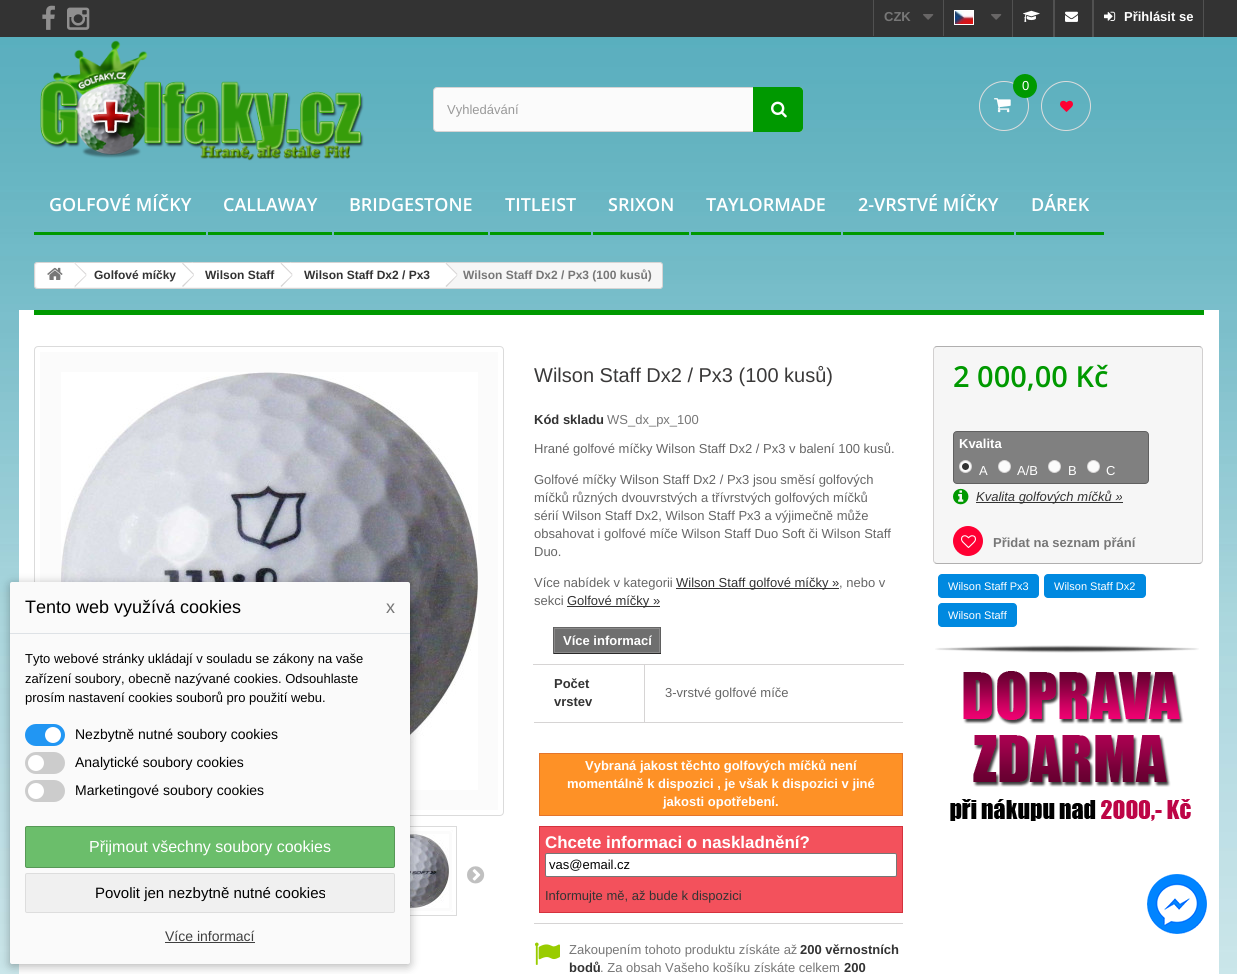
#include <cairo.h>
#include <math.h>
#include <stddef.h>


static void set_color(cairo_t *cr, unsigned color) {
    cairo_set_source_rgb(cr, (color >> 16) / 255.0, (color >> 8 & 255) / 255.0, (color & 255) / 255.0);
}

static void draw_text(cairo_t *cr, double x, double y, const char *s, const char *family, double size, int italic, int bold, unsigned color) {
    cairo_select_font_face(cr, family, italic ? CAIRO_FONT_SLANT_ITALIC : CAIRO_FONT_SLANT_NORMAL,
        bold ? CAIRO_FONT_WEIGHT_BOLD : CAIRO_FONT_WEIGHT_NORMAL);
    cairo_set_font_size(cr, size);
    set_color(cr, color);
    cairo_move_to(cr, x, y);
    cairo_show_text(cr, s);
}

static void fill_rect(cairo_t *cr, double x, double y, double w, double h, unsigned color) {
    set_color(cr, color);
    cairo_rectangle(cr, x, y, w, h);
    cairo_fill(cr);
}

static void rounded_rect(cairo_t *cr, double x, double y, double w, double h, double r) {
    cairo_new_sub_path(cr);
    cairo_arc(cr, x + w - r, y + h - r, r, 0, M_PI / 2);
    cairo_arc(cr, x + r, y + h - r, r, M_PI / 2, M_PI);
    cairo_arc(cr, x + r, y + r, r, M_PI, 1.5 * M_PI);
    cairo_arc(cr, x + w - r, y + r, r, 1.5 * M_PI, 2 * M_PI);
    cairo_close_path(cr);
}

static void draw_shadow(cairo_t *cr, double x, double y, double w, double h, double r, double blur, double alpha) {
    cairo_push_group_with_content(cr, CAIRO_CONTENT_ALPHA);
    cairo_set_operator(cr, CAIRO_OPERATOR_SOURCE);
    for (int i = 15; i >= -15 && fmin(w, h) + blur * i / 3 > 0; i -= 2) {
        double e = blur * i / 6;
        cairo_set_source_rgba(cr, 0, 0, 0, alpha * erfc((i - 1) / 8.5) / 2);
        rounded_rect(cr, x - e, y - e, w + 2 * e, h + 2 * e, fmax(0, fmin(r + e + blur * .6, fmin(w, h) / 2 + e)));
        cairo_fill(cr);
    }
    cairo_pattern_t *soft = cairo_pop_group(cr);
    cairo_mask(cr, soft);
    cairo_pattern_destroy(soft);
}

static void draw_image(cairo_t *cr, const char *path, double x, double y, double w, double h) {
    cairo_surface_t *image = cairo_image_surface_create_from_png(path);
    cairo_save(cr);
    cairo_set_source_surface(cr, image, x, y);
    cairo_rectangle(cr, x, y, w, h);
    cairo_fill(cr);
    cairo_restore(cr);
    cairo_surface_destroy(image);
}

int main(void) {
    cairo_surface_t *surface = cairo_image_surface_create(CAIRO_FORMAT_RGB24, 1237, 974);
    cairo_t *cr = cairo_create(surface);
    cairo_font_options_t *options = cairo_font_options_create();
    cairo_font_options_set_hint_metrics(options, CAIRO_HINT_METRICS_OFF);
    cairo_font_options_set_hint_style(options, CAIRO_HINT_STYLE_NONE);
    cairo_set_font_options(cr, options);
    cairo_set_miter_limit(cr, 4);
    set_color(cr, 0xFFFFFF);
    cairo_paint(cr);
    draw_image(cr, "assets/img1.png", 0, 37, 1237, 937);
    fill_rect(cr, 0, 0, 1237, 37, 0x333333);
    draw_image(cr, "assets/img2.png", 42, 5, 13, 25);
    draw_image(cr, "assets/img3.png", 67, 7, 23, 23);
    fill_rect(cr, 873, 0, 1, 36, 0x515151);
    draw_text(cr, 884, 21, "CZK", "Liberation Sans", 13, 0, 1, 0x777777);
    draw_image(cr, "assets/img4.png", 923, 14, 11, 6);
    fill_rect(cr, 943, 0, 1, 36, 0x515151);
    cairo_rectangle(cr, 954.5, 10.5, 19, 14);
    set_color(cr, 0xFFFFFF);
    cairo_set_line_width(cr, 1);
    cairo_stroke(cr);
    draw_image(cr, "assets/img5.png", 955, 11, 18, 13);
    draw_image(cr, "assets/img4.png", 991, 14, 11, 6);
    fill_rect(cr, 1012, 0, 1, 37, 0x515151);
    draw_image(cr, "assets/img6.png", 1023, 10, 17, 12);
    fill_rect(cr, 1053, 0, 2, 37, 0x515151);
    draw_image(cr, "assets/img7.png", 1065, 11, 13, 11);
    fill_rect(cr, 1203, 0, 1, 37, 0x515151);
    fill_rect(cr, 1092, 0, 2, 37, 0x515151);
    draw_image(cr, "assets/img8.png", 1104, 11, 12, 10);
    draw_text(cr, 1124, 21, "Přihlásit se", "Liberation Sans", 13, 0, 1, 0xFFFFFF);
    draw_image(cr, "assets/img9.png", 40, 40, 324, 121);
    cairo_arc(cr, 1004, 106, 24.5, 0, 2 * M_PI);
    set_color(cr, 0xDDDDDD);
    cairo_stroke(cr);
    set_color(cr, 0x009900);
    cairo_arc(cr, 1025, 86, 12, 0, 2 * M_PI);
    cairo_fill(cr);
    draw_text(cr, 1022, 90, "0", "Liberation Sans", 13, 0, 0, 0xFFFFFF);
    draw_image(cr, "assets/img10.png", 994, 98, 17, 15);
    cairo_arc(cr, 1066, 106, 24.5, 0, 2 * M_PI);
    set_color(cr, 0xDDDDDD);
    cairo_stroke(cr);
    draw_image(cr, "assets/img11.png", 1060, 100, 13, 12);
    set_color(cr, 0xFBFBFB);
    rounded_rect(cr, 433.5, 87.5, 369, 44, 3.5);
    cairo_fill_preserve(cr);
    set_color(cr, 0xD6D4D4);
    cairo_stroke(cr);
    draw_text(cr, 447, 114, "Vyhledávání", "Liberation Sans", 13, 0, 0, 0x999999);
    set_color(cr, 0x009900);
    cairo_new_path(cr);
    cairo_move_to(cr, 753, 87);
    cairo_line_to(cr, 799, 87);
    cairo_curve_to(cr, 801, 87, 803, 89, 803, 91);
    cairo_line_to(cr, 803, 128);
    cairo_curve_to(cr, 803, 130, 801, 132, 799, 132);
    cairo_line_to(cr, 753, 132);
    cairo_close_path(cr);
    cairo_fill(cr);
    draw_image(cr, "assets/img12.png", 771, 101, 16, 17);
    fill_rect(cr, 34, 232, 172, 3, 0x009900);
    draw_text(cr, 49, 211, "GOLFOVÉ MÍČKY", "Open Sans SemiBold", 18, 0, 0, 0xFFFFFF);
    fill_rect(cr, 208, 232, 124, 3, 0x009900);
    draw_text(cr, 223, 211, "CALLAWAY", "Open Sans SemiBold", 18, 0, 0, 0xFFFFFF);
    fill_rect(cr, 334, 232, 154, 3, 0x009900);
    draw_text(cr, 349, 211, "BRIDGESTONE", "Open Sans SemiBold", 18, 0, 0, 0xFFFFFF);
    fill_rect(cr, 490, 232, 101, 3, 0x009900);
    draw_text(cr, 505, 211, "TITLEIST", "Open Sans SemiBold", 18, 0, 0, 0xFFFFFF);
    fill_rect(cr, 593, 232, 96, 3, 0x009900);
    draw_text(cr, 608, 211, "SRIXON", "Open Sans SemiBold", 18, 0, 0, 0xFFFFFF);
    fill_rect(cr, 691, 232, 150, 3, 0x009900);
    draw_text(cr, 706, 211, "TAYLORMADE", "Open Sans SemiBold", 18, 0, 0, 0xFFFFFF);
    fill_rect(cr, 843, 232, 171, 3, 0x009900);
    draw_text(cr, 858, 211, "2-VRSTVÉ MÍČKY", "Open Sans SemiBold", 18, 0, 0, 0xFFFFFF);
    fill_rect(cr, 1016, 232, 88, 3, 0x009900);
    draw_text(cr, 1031, 211, "DÁREK", "Open Sans SemiBold", 18, 0, 0, 0xFFFFFF);
    set_color(cr, 0xF6F6F6);
    rounded_rect(cr, 34.5, 262.5, 628, 26, 2.5);
    cairo_fill_preserve(cr);
    set_color(cr, 0xD6D4D4);
    cairo_stroke(cr);
    set_color(cr, 0xFFFFFF);
    cairo_new_path(cr);
    cairo_move_to(cr, 39, 263);
    cairo_line_to(cr, 74, 263);
    cairo_line_to(cr, 74, 288);
    cairo_line_to(cr, 39, 288);
    cairo_curve_to(cr, 37.5, 288, 36, 286.5, 36, 285);
    cairo_line_to(cr, 36, 266);
    cairo_curve_to(cr, 36, 264.5, 37.5, 263, 39, 263);
    cairo_close_path(cr);
    cairo_fill(cr);
    fill_rect(cr, 74, 263, 109, 24, 0xFFFFFF);
    cairo_new_path(cr);
    cairo_move_to(cr, 76, 263.5);
    cairo_line_to(cr, 86, 273.5);
    cairo_curve_to(cr, 86.5, 274, 86.5, 275.5, 86, 276.5);
    cairo_line_to(cr, 76, 286);
    cairo_curve_to(cr, 75, 287, 74, 287, 73, 286);
    cairo_line_to(cr, 63, 276.5);
    cairo_curve_to(cr, 62.5, 275.5, 62.5, 274, 63, 273.5);
    cairo_line_to(cr, 73, 263.5);
    cairo_curve_to(cr, 74, 262.5, 75, 262.5, 76, 263.5);
    cairo_close_path(cr);
    cairo_fill(cr);
    draw_image(cr, "assets/img13.png", 47, 267, 16, 13);
    set_color(cr, 0xD6D4D4);
    cairo_new_path(cr);
    cairo_move_to(cr, 75, 263);
    cairo_line_to(cr, 86.5, 274);
    cairo_line_to(cr, 86, 275);
    cairo_line_to(cr, 74.5, 263.5);
    cairo_close_path(cr);
    cairo_move_to(cr, 86, 275);
    cairo_line_to(cr, 86.5, 275.5);
    cairo_line_to(cr, 75, 287);
    cairo_line_to(cr, 74.5, 286);
    cairo_close_path(cr);
    cairo_fill(cr);
    draw_text(cr, 94, 279, "Golfové míčky", "Liberation Sans", 12, 0, 1, 0x333333);
    set_color(cr, 0xFFFFFF);
    cairo_new_path(cr);
    cairo_move_to(cr, 193.5, 263.5);
    cairo_line_to(cr, 203.5, 273.5);
    cairo_curve_to(cr, 204.5, 274, 204.5, 275.5, 203.5, 276.5);
    cairo_line_to(cr, 193.5, 286);
    cairo_curve_to(cr, 193, 287, 191.5, 287, 191, 286);
    cairo_line_to(cr, 181, 276.5);
    cairo_curve_to(cr, 180, 275.5, 180, 274, 181, 273.5);
    cairo_line_to(cr, 191, 263.5);
    cairo_curve_to(cr, 191.5, 262.5, 193, 262.5, 193.5, 263.5);
    cairo_close_path(cr);
    cairo_fill(cr);
    fill_rect(cr, 183, 263, 99, 24, 0xFFFFFF);
    set_color(cr, 0xD6D4D4);
    cairo_new_path(cr);
    cairo_move_to(cr, 183, 263);
    cairo_line_to(cr, 194, 274);
    cairo_line_to(cr, 193.5, 275);
    cairo_line_to(cr, 182, 263.5);
    cairo_close_path(cr);
    cairo_move_to(cr, 193.5, 275);
    cairo_line_to(cr, 194, 275.5);
    cairo_line_to(cr, 183, 287);
    cairo_line_to(cr, 182, 286);
    cairo_close_path(cr);
    cairo_fill(cr);
    draw_text(cr, 205, 279, "Wilson Staff", "Liberation Sans", 12, 0, 1, 0x333333);
    set_color(cr, 0xFFFFFF);
    cairo_new_path(cr);
    cairo_move_to(cr, 292, 263.5);
    cairo_line_to(cr, 302, 273.5);
    cairo_curve_to(cr, 302.5, 274, 302.5, 275.5, 302, 276.5);
    cairo_line_to(cr, 292, 286);
    cairo_curve_to(cr, 291, 287, 290, 287, 289, 286);
    cairo_line_to(cr, 279, 276.5);
    cairo_curve_to(cr, 278.5, 275.5, 278.5, 274, 279, 273.5);
    cairo_line_to(cr, 289, 263.5);
    cairo_curve_to(cr, 290, 262.5, 291, 262.5, 292, 263.5);
    cairo_close_path(cr);
    cairo_fill(cr);
    fill_rect(cr, 282, 263, 163, 24, 0xFFFFFF);
    set_color(cr, 0xD6D4D4);
    cairo_new_path(cr);
    cairo_move_to(cr, 281.5, 263);
    cairo_line_to(cr, 292.5, 274);
    cairo_line_to(cr, 292, 275);
    cairo_line_to(cr, 280.5, 263.5);
    cairo_close_path(cr);
    cairo_move_to(cr, 292, 275);
    cairo_line_to(cr, 292.5, 275.5);
    cairo_line_to(cr, 281.5, 287);
    cairo_line_to(cr, 280.5, 286);
    cairo_close_path(cr);
    cairo_fill(cr);
    draw_text(cr, 304, 279, "Wilson Staff Dx2 / Px3", "Liberation Sans", 12, 0, 1, 0x333333);
    set_color(cr, 0xFFFFFF);
    cairo_new_path(cr);
    cairo_move_to(cr, 447, 263.5);
    cairo_line_to(cr, 457, 273.5);
    cairo_curve_to(cr, 457.5, 274, 457.5, 275.5, 457, 276.5);
    cairo_line_to(cr, 447, 286);
    cairo_curve_to(cr, 446, 287, 445, 287, 444, 286);
    cairo_line_to(cr, 434.5, 276.5);
    cairo_curve_to(cr, 433.5, 275.5, 433.5, 274, 434.5, 273.5);
    cairo_line_to(cr, 444, 263.5);
    cairo_curve_to(cr, 445, 262.5, 446, 262.5, 447, 263.5);
    cairo_close_path(cr);
    cairo_fill(cr);
    set_color(cr, 0xD6D4D4);
    cairo_new_path(cr);
    cairo_move_to(cr, 446.5, 263);
    cairo_line_to(cr, 457.5, 274);
    cairo_line_to(cr, 457, 275);
    cairo_line_to(cr, 445.5, 263.5);
    cairo_close_path(cr);
    cairo_move_to(cr, 457, 275);
    cairo_line_to(cr, 457.5, 275.5);
    cairo_line_to(cr, 446.5, 287);
    cairo_line_to(cr, 445.5, 286);
    cairo_close_path(cr);
    cairo_fill(cr);
    draw_text(cr, 463, 279, "Wilson Staff Dx2 / Px3 (100 kusů)", "Liberation Sans", 12, 0, 1, 0x777777);
    fill_rect(cr, 19, 310, 1200, 664, 0xFFFFFF);
    fill_rect(cr, 34, 310, 1170, 5, 0x009900);
    rounded_rect(cr, 34.5, 346.5, 469, 469, 3.5);
    set_color(cr, 0xDBDBDB);
    cairo_stroke(cr);
    fill_rect(cr, 40, 352, 458, 458, 0xFBFBFB);
    draw_image(cr, "assets/img14.png", 61, 372, 417, 418);
    cairo_rectangle(cr, 367.5, 826.5, 89, 89);
    set_color(cr, 0xDBDBDB);
    cairo_stroke(cr);
    fill_rect(cr, 410, 830, 43, 82, 0xFBFBFB);
    rounded_rect(cr, 371.5, 830.5, 81, 81, 3.5);
    set_color(cr, 0xFFFFFF);
    cairo_stroke(cr);
    draw_image(cr, "assets/img15.png", 410, 834, 39, 74);
    draw_image(cr, "assets/img16.png", 467, 866, 18, 18);
    draw_text(cr, 534, 382, "Wilson Staff Dx2 / Px3 (100 kusů)", "Liberation Sans", 20, 0, 0, 0x3A3939);
    draw_text(cr, 534, 424, "Kód skladu", "Liberation Sans", 13, 0, 1, 0x333333);
    draw_text(cr, 607, 424, "WS_dx_px_100", "Liberation Sans", 13, 0, 0, 0x777777);
    draw_text(cr, 534, 453, "Hrané golfové míčky Wilson Staff Dx2 / Px3 v balení 100 kusů.", "Liberation Sans", 13, 0, 0, 0x666666);
    draw_text(cr, 534, 484, "Golfové míčky Wilson Staff Dx2 / Px3 jsou směsí golfových", "Liberation Sans", 13, 0, 0, 0x666666);
    draw_text(cr, 534, 502, "míčků různých dvouvrstvých a třívrstvých golfových míčků", "Liberation Sans", 13, 0, 0, 0x666666);
    draw_text(cr, 534, 520, "sérií Wilson Staff Dx2, Wilson Staff Px3 a výjimečně může", "Liberation Sans", 13, 0, 0, 0x666666);
    draw_text(cr, 534, 538, "obsahovat i golfové míče Wilson Staff Duo Soft či Wilson Staff", "Liberation Sans", 13, 0, 0, 0x666666);
    draw_text(cr, 534, 556, "Duo.", "Liberation Sans", 13, 0, 0, 0x666666);
    draw_text(cr, 534, 587, "Více nabídek v kategorii", "Liberation Sans", 13, 0, 0, 0x666666);
    fill_rect(cr, 676, 588, 163, 1, 0x333333);
    draw_text(cr, 676, 587, "Wilson Staff golfové míčky »", "Liberation Sans", 13, 0, 0, 0x333333);
    draw_text(cr, 839, 587, ", nebo v", "Liberation Sans", 13, 0, 0, 0x666666);
    draw_text(cr, 534, 605, "sekci", "Liberation Sans", 13, 0, 0, 0x666666);
    fill_rect(cr, 567, 606, 93, 1, 0x333333);
    draw_text(cr, 567, 605, "Golfové míčky »", "Liberation Sans", 13, 0, 0, 0x333333);
    fill_rect(cr, 553, 627, 108, 1, 0x666666);
    fill_rect(cr, 660, 627, 1, 27, 0x5F5F5F);
    fill_rect(cr, 553, 653, 108, 1, 0x292929);
    fill_rect(cr, 553, 627, 1, 27, 0x5F5F5F);
    set_color(cr, 0x6F6F6F);
    cairo_rectangle(cr, 554.5, 628.5, 105, 24);
    cairo_fill_preserve(cr);
    set_color(cr, 0x8B8A8A);
    cairo_stroke(cr);
    draw_text(cr, 563, 645, "Více informací", "Liberation Sans", 13, 0, 1, 0xFFFFFF);
    fill_rect(cr, 534, 722, 369, 1, 0xD6D4D4);
    fill_rect(cr, 533, 664, 371, 1, 0xD6D4D4);
    fill_rect(cr, 644, 664, 1, 59, 0xD6D4D4);
    draw_text(cr, 554, 688, "Počet", "Liberation Sans", 13, 0, 1, 0x333333);
    draw_text(cr, 554, 706, "vrstev", "Liberation Sans", 13, 0, 1, 0x333333);
    draw_text(cr, 665, 697, "3-vrstvé golfové míče", "Liberation Sans", 13, 0, 0, 0x666666);
    set_color(cr, 0xFE9126);
    cairo_rectangle(cr, 539.5, 753.5, 363, 62);
    cairo_fill_preserve(cr);
    set_color(cr, 0xE4752B);
    cairo_stroke(cr);
    draw_text(cr, 585, 770, "Vybraná jakost těchto golfových míčků není", "Liberation Sans", 13, 0, 1, 0xFFFFFF);
    draw_text(cr, 567, 788, "momentálně k dispozici , je však k dispozici v jiné", "Liberation Sans", 13, 0, 1, 0xFFFFFF);
    draw_text(cr, 663, 806, "jakosti opotřebení.", "Liberation Sans", 13, 0, 1, 0xFFFFFF);
    set_color(cr, 0xF3515C);
    cairo_rectangle(cr, 539.5, 826.5, 363, 86);
    cairo_fill_preserve(cr);
    set_color(cr, 0xD4323D);
    cairo_stroke(cr);
    draw_text(cr, 545, 848, "Chcete informaci o naskladnění?", "Liberation Sans", 16.9, 0, 1, 0xFFFFFF);
    rounded_rect(cr, 545.5, 853.5, 351, 23, 1.5);
    cairo_fill_preserve(cr);
    set_color(cr, 0x767676);
    cairo_stroke(cr);
    draw_text(cr, 549, 869, "vas@email.cz", "Liberation Sans", 13, 0, 0, 0x000000);
    draw_text(cr, 545, 900, "Informujte mě, až bude k dispozici", "Liberation Sans", 13, 0, 0, 0x333333);
    fill_rect(cr, 534, 923, 369, 1, 0xD6D4D4);
    draw_image(cr, "assets/img17.png", 534, 942, 26, 23);
    draw_text(cr, 569, 954, "Zakoupením tohoto produktu získáte až", "Liberation Sans", 13, 0, 0, 0x777777);
    draw_text(cr, 800, 954, "200 věrnostních", "Liberation Sans", 13, 0, 1, 0x333333);
    draw_text(cr, 569, 972, "bodů", "Liberation Sans", 13, 0, 1, 0x333333);
    draw_text(cr, 600, 972, ". Za obsah Vašeho košíku získáte celkem", "Liberation Sans", 13, 0, 0, 0x777777);
    draw_text(cr, 844, 972, "200", "Liberation Sans", 13, 0, 1, 0x333333);
    set_color(cr, 0xF6F6F6);
    rounded_rect(cr, 933, 346, 270, 218, 4);
    cairo_fill(cr);
    cairo_new_path(cr);
    cairo_move_to(cr, 934.5, 347.5);
    cairo_curve_to(cr, 935, 347, 936, 346.5, 937, 346.5);
    cairo_line_to(cr, 1199, 346.5);
    cairo_curve_to(cr, 1200, 346.5, 1201, 347, 1201.5, 347.5);
    set_color(cr, 0xB0AFAF);
    cairo_stroke(cr);
    cairo_new_path(cr);
    cairo_move_to(cr, 1201.5, 347.5);
    cairo_curve_to(cr, 1202, 348, 1202.5, 349, 1202.5, 350);
    cairo_line_to(cr, 1202.5, 560);
    cairo_curve_to(cr, 1202.5, 561, 1202, 562, 1201.5, 562.5);
    set_color(cr, 0xD2D0D0);
    cairo_stroke(cr);
    cairo_new_path(cr);
    cairo_move_to(cr, 1201.5, 562.5);
    cairo_curve_to(cr, 1201, 563, 1200, 563.5, 1199, 563.5);
    cairo_line_to(cr, 937, 563.5);
    cairo_curve_to(cr, 936, 563.5, 935, 563, 934.5, 562.5);
    set_color(cr, 0xB0AFAF);
    cairo_stroke(cr);
    cairo_new_path(cr);
    cairo_move_to(cr, 934.5, 562.5);
    cairo_curve_to(cr, 934, 562, 933.5, 561, 933.5, 560);
    cairo_line_to(cr, 933.5, 350);
    cairo_curve_to(cr, 933.5, 349, 934, 348, 934.5, 347.5);
    set_color(cr, 0xD2D0D0);
    cairo_stroke(cr);
    draw_text(cr, 953, 387, "2 000,00 Kč", "Open Sans SemiBold", 29, 0, 0, 0x009900);
    set_color(cr, 0x808080);
    rounded_rect(cr, 953.5, 431.5, 195, 52, 3.5);
    cairo_fill_preserve(cr);
    set_color(cr, 0x606060);
    cairo_stroke(cr);
    draw_text(cr, 959, 448, "Kvalita", "Liberation Sans", 13, 0, 1, 0xFFFFFF);
    draw_image(cr, "assets/img18.png", 959, 460, 13, 13);
    draw_text(cr, 979, 475, "A", "Liberation Sans", 13, 0, 0, 0xFFFFFF);
    draw_image(cr, "assets/img19.png", 998, 460, 13, 13);
    draw_text(cr, 1017, 475, "A/B", "Liberation Sans", 13, 0, 0, 0xFFFFFF);
    draw_image(cr, "assets/img19.png", 1048, 460, 13, 13);
    draw_text(cr, 1068, 475, "B", "Liberation Sans", 13, 0, 0, 0xFFFFFF);
    draw_image(cr, "assets/img19.png", 1087, 460, 13, 13);
    draw_text(cr, 1106, 475, "C", "Liberation Sans", 13, 0, 0, 0xFFFFFF);
    draw_image(cr, "assets/img20.png", 953, 488, 16, 17);
    fill_rect(cr, 976, 502, 147, 1, 0x333333);
    draw_text(cr, 976, 501, "Kvalita golfových míčků »", "Liberation Sans", 13, 1, 0, 0x333333);
    set_color(cr, 0xFF0033);
    cairo_new_path(cr);
    cairo_arc(cr, 968, 541, 15, 0, 2 * M_PI);
    cairo_fill(cr);
    draw_image(cr, "assets/img21.png", 961, 535, 15, 13);
    draw_text(cr, 993, 547, "Přidat na seznam přání", "Liberation Sans", 13, 0, 1, 0x777777);
    set_color(cr, 0x0089E0);
    rounded_rect(cr, 938, 574, 101, 24, 4);
    cairo_fill(cr);
    draw_text(cr, 948, 590, "Wilson Staff Px3", "Liberation Sans", 11, 0, 0, 0xFFFFFF);
    set_color(cr, 0x0089E0);
    rounded_rect(cr, 1044, 574, 102, 24, 4);
    cairo_fill(cr);
    draw_text(cr, 1054, 590, "Wilson Staff Dx2", "Liberation Sans", 11, 0, 0, 0xFFFFFF);
    set_color(cr, 0x0089E0);
    rounded_rect(cr, 938, 603, 79, 24, 4);
    cairo_fill(cr);
    draw_text(cr, 948, 619, "Wilson Staff", "Liberation Sans", 11, 0, 0, 0xFFFFFF);
    draw_image(cr, "assets/img22.png", 935, 645, 264, 176);
    draw_image(cr, "assets/img23.png", 1147, 874, 60, 60);
    set_color(cr, 0x000000);
    draw_shadow(cr, 10, 584, 400, 382, 2, 5, 0.3);
    set_color(cr, 0xFAFAFA);
    rounded_rect(cr, 10, 582, 400, 382, 2);
    cairo_fill(cr);
    fill_rect(cr, 10, 633, 400, 1, 0xDEE2E6);
    draw_text(cr, 25, 613, "Tento web využívá cookies", "Liberation Sans", 18, 0, 0, 0x000000);
    draw_text(cr, 386, 613, "x", "Liberation Sans", 18, 0, 0, 0x777777);
    draw_text(cr, 25, 663, "Tyto webové stránky ukládají v souladu se zákony na vaše", "Liberation Sans", 13, 0, 0, 0x000000);
    draw_text(cr, 25, 683, "zařízení soubory, obecně nazývané cookies. Odsouhlaste", "Liberation Sans", 13, 0, 0, 0x000000);
    draw_text(cr, 25, 702, "prosím nastavení cookies souborů pro použití webu.", "Liberation Sans", 13, 0, 0, 0x000000);
    set_color(cr, 0x2196F3);
    rounded_rect(cr, 25, 724, 40, 22, 11);
    cairo_fill(cr);
    set_color(cr, 0xFFFFFF);
    cairo_arc(cr, 53, 735, 8, 0, 2 * M_PI);
    cairo_fill(cr);
    draw_text(cr, 75, 739, "Nezbytně nutné soubory cookies", "Liberation Sans", 14, 0, 0, 0x000000);
    set_color(cr, 0xCCCCCC);
    rounded_rect(cr, 25, 752, 40, 22, 11);
    cairo_fill(cr);
    set_color(cr, 0xFFFFFF);
    cairo_arc(cr, 36, 763, 8, 0, 2 * M_PI);
    cairo_fill(cr);
    draw_text(cr, 75, 767, "Analytické soubory cookies", "Liberation Sans", 14, 0, 0, 0x000000);
    set_color(cr, 0xCCCCCC);
    rounded_rect(cr, 25, 780, 40, 22, 11);
    cairo_fill(cr);
    set_color(cr, 0xFFFFFF);
    cairo_arc(cr, 36, 791, 8, 0, 2 * M_PI);
    cairo_fill(cr);
    draw_text(cr, 75, 795, "Marketingové soubory cookies", "Liberation Sans", 14, 0, 0, 0x000000);
    set_color(cr, 0x6BBE6B);
    rounded_rect(cr, 25.5, 826.5, 369, 41, 1.5);
    cairo_fill_preserve(cr);
    set_color(cr, 0x569856);
    cairo_stroke(cr);
    draw_text(cr, 89, 852, "Přijmout všechny soubory cookies", "Liberation Sans", 16, 0, 0, 0xFFFFFF);
    set_color(cr, 0xF0F0F0);
    rounded_rect(cr, 25.5, 873.5, 369, 39, 1.5);
    cairo_fill_preserve(cr);
    set_color(cr, 0xDDDDDD);
    cairo_stroke(cr);
    draw_text(cr, 95, 898, "Povolit jen nezbytně nutné cookies", "Liberation Sans", 15, 0, 0, 0x000000);
    draw_text(cr, 165, 941, "Více informací", "Liberation Sans", 14, 0, 0, 0x3F3F3F);
    fill_rect(cr, 165, 942, 90, 1, 0x3F3F3F);
    cairo_surface_write_to_png(surface, "output.png");
    cairo_font_options_destroy(options);
    cairo_destroy(cr);
    cairo_surface_destroy(surface);
    return 0;
}
